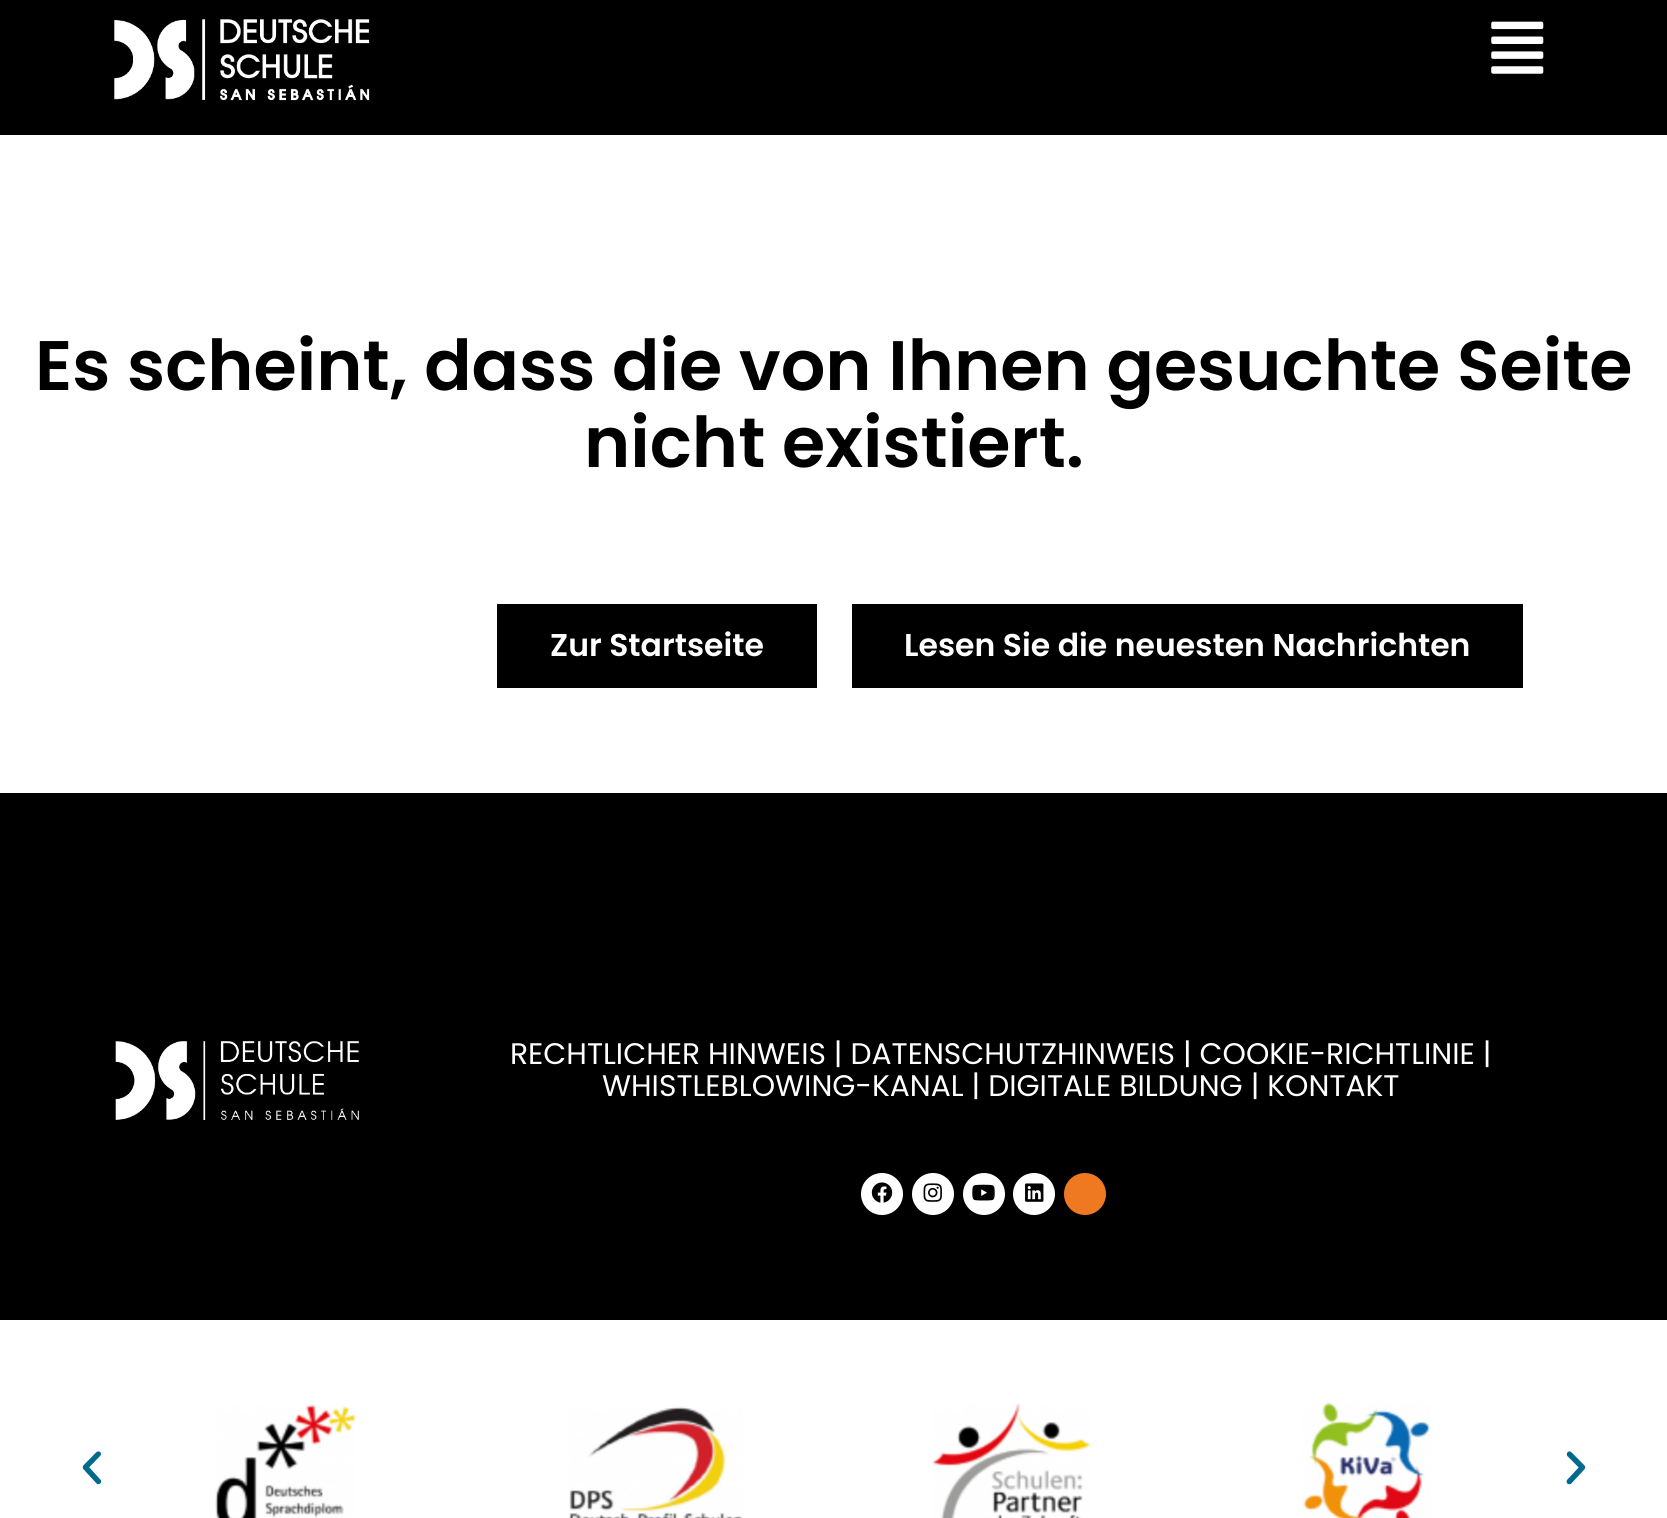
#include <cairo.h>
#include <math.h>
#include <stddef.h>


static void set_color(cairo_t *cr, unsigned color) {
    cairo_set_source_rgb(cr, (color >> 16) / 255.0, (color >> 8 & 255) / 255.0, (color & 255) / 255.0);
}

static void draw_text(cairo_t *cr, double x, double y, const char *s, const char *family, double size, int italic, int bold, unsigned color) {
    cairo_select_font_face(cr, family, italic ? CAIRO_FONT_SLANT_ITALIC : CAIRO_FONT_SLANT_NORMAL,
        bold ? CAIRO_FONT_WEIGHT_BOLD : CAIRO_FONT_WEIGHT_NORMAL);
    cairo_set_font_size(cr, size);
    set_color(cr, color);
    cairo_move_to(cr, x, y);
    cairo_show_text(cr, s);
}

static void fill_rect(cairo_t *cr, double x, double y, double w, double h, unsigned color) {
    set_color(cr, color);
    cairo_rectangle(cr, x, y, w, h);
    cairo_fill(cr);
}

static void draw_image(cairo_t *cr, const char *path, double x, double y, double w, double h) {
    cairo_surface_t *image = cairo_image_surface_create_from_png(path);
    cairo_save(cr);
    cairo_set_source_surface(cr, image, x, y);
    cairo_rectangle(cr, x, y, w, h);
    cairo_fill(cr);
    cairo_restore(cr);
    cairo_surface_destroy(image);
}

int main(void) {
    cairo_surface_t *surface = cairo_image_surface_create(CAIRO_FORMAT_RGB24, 1667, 1518);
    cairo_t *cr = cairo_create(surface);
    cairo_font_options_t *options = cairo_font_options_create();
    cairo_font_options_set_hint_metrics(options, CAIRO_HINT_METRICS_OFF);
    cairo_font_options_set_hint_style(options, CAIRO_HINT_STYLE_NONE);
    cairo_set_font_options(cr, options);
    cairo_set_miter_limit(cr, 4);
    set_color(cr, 0xFFFFFF);
    cairo_paint(cr);
    fill_rect(cr, 0, 0, 1667, 135, 0x000000);
    draw_image(cr, "assets/img1.png", 114, 19, 256, 82);
    draw_image(cr, "assets/img2.png", 1491, 21, 53, 53);
    draw_text(cr, 35, 390, "Es scheint, dass die von Ihnen gesuchte Seite", "Poppins SemiBold", 70, 0, 0, 0x000000);
    draw_text(cr, 584, 467, "nicht existiert.", "Poppins SemiBold", 70, 0, 0, 0x000000);
    fill_rect(cr, 497, 604, 320, 84, 0x000000);
    draw_text(cr, 550, 656, "Zur Startseite", "Poppins SemiBold", 31.5, 0, 0, 0xFFFFFF);
    fill_rect(cr, 852, 604, 671, 84, 0x000000);
    draw_text(cr, 904, 656, "Lesen Sie die neuesten Nachrichten", "Poppins SemiBold", 31.5, 0, 0, 0xFFFFFF);
    fill_rect(cr, 0, 793, 1667, 527, 0x000000);
    draw_image(cr, "assets/img3.png", 115, 1041, 245, 79);
    draw_text(cr, 510, 1064, "RECHTLICHER HINWEIS | DATENSCHUTZHINWEIS | COOKIE-RICHTLINIE |", "Poppins", 29.75, 0, 0, 0xFFFFFF);
    draw_text(cr, 602, 1096, "WHISTLEBLOWING-KANAL | DIGITALE BILDUNG | KONTAKT", "Poppins", 29.75, 0, 0, 0xFFFFFF);
    cairo_new_path(cr);
    cairo_arc(cr, 882, 1194, 21, 0, 2 * M_PI);
    cairo_fill(cr);
    draw_image(cr, "assets/img4.png", 871, 1182, 22, 21);
    cairo_arc(cr, 933, 1194, 21, 0, 2 * M_PI);
    cairo_fill(cr);
    draw_image(cr, "assets/img5.png", 923, 1183, 19, 19);
    cairo_arc(cr, 984, 1194, 21, 0, 2 * M_PI);
    cairo_fill(cr);
    draw_image(cr, "assets/img6.png", 972, 1184, 23, 17);
    cairo_arc(cr, 1034, 1194, 21, 0, 2 * M_PI);
    cairo_fill(cr);
    draw_image(cr, "assets/img7.png", 1025, 1183, 19, 19);
    set_color(cr, 0xEF7921);
    cairo_arc(cr, 1085, 1194, 21, 0, 2 * M_PI);
    cairo_fill(cr);
    draw_image(cr, "assets/img8.png", 82, 1451, 20, 34);
    draw_image(cr, "assets/img9.png", 215, 1404, 141, 114);
    draw_image(cr, "assets/img10.png", 569, 1406, 174, 112);
    draw_image(cr, "assets/img11.png", 932, 1403, 159, 115);
    draw_image(cr, "assets/img12.png", 1302, 1402, 129, 116);
    draw_image(cr, "assets/img13.png", 1566, 1451, 20, 34);
    cairo_surface_write_to_png(surface, "output.png");
    cairo_font_options_destroy(options);
    cairo_destroy(cr);
    cairo_surface_destroy(surface);
    return 0;
}
